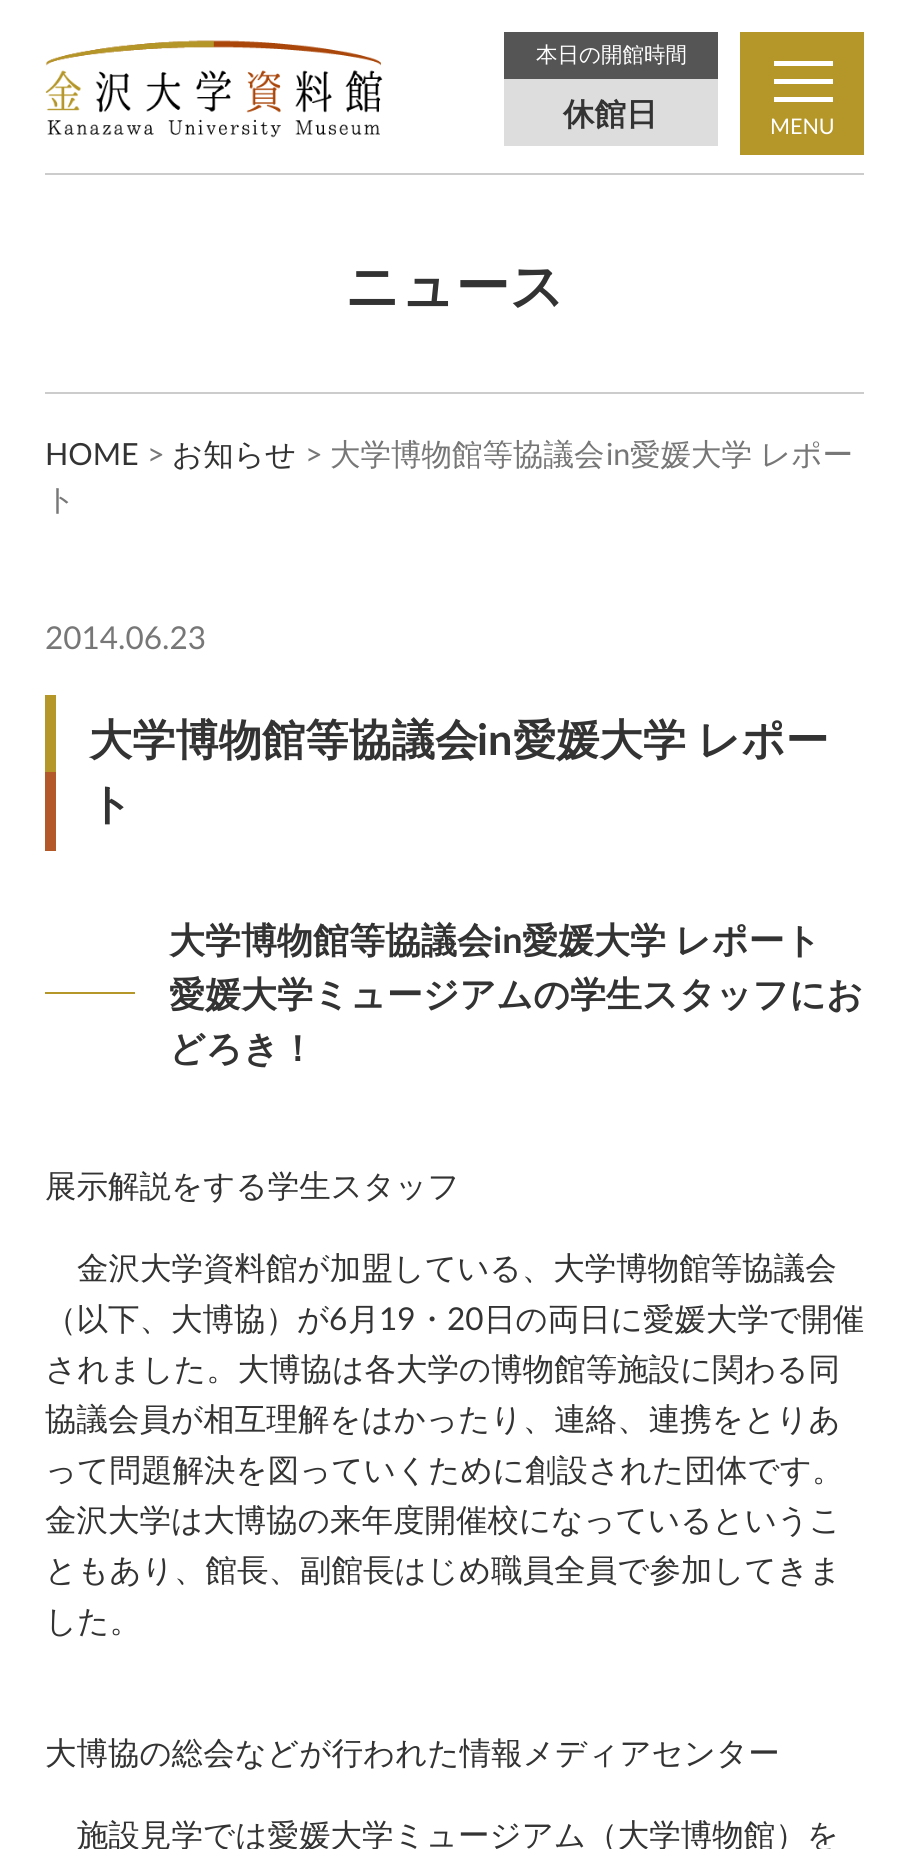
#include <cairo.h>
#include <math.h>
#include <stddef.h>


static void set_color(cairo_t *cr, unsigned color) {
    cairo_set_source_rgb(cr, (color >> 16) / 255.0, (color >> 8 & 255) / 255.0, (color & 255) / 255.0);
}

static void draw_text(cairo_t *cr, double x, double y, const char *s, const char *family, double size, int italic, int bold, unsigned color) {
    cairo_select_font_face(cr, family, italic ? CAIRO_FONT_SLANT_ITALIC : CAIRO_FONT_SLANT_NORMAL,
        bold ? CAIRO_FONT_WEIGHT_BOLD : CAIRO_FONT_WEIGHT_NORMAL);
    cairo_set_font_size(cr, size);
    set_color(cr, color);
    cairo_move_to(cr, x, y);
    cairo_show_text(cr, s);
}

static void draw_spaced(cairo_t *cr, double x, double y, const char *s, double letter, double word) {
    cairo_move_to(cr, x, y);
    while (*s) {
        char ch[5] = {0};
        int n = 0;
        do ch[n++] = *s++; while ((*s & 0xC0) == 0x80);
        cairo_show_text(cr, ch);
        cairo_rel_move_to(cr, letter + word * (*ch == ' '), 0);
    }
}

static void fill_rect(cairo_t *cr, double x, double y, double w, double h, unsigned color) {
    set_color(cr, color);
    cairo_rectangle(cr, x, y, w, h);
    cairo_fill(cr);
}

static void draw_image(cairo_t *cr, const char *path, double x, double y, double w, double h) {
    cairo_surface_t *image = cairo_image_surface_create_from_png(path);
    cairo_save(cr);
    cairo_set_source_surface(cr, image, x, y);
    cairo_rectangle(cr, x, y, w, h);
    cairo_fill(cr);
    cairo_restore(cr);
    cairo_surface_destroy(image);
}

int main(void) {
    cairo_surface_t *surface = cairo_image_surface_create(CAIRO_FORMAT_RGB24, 907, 1849);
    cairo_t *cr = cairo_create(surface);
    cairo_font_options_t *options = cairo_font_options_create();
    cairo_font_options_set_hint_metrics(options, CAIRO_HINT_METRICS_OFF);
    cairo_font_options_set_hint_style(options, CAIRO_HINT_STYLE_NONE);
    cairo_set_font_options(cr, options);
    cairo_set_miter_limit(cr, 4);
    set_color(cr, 0xFFFFFF);
    cairo_paint(cr);
    draw_image(cr, "assets/img1.png", 45, 40, 338, 98);
    fill_rect(cr, 504, 32, 214, 47, 0x555555);
    draw_text(cr, 536, 62, "本日の開館時間", "WenQuanYi Zen Hei Medium", 21.5, 0, 0, 0xFFFFFF);
    fill_rect(cr, 504, 79, 214, 67, 0xDDDDDD);
    draw_text(cr, 563, 125, "休館日", "WenQuanYi Zen Hei", 31.5, 0, 1, 0x333333);
    fill_rect(cr, 740, 32, 124, 123, 0xB49629);
    fill_rect(cr, 774, 61, 59, 5, 0xFFFFFF);
    fill_rect(cr, 774, 79, 59, 5, 0xFFFFFF);
    fill_rect(cr, 774, 97, 59, 5, 0xFFFFFF);
    draw_text(cr, 770, 134, "MENU", "Lato", 21.5, 0, 0, 0xFFFFFF);
    fill_rect(cr, 45, 173, 819, 2, 0xCCCCCC);
    fill_rect(cr, 45, 392, 819, 2, 0xCCCCCC);
    draw_text(cr, 345, 305, "ニュース", "WenQuanYi Zen Hei", 54, 0, 1, 0x333333);
    draw_text(cr, 45, 465, "HOME", "Lato", 30.5, 0, 0, 0x333333);
    draw_text(cr, 147, 465, ">", "Lato", 30.5, 0, 0, 0x777777);
    draw_text(cr, 172, 465, "お知らせ", "WenQuanYi Zen Hei Medium", 30.5, 0, 0, 0x333333);
    draw_text(cr, 305, 465, ">", "Lato", 30.5, 0, 0, 0x777777);
    draw_text(cr, 330, 465, "大学博物館等協議会", "WenQuanYi Zen Hei Medium", 30.5, 0, 0, 0x777777);
    draw_text(cr, 606, 465, "in", "Lato", 30.5, 0, 0, 0x777777);
    cairo_select_font_face(cr, "WenQuanYi Zen Hei Medium", CAIRO_FONT_SLANT_NORMAL, CAIRO_FONT_WEIGHT_NORMAL);
    draw_spaced(cr, 630, 465, "愛媛大学 レポー", 0, -1);
    draw_text(cr, 45, 510, "ト", "WenQuanYi Zen Hei Medium", 30.5, 0, 0, 0x777777);
    draw_text(cr, 45, 649, "2014.06.23", "Lato", 31.5, 0, 0, 0x777777);
    fill_rect(cr, 45, 695, 11, 77, 0xB49629);
    draw_text(cr, 89, 755, "大学博物館等協議会", "WenQuanYi Zen Hei", 43.25, 0, 1, 0x333333);
    draw_text(cr, 477, 755, "in", "Lato", 43.25, 0, 1, 0x333333);
    cairo_select_font_face(cr, "WenQuanYi Zen Hei", CAIRO_FONT_SLANT_NORMAL, CAIRO_FONT_WEIGHT_BOLD);
    draw_spaced(cr, 513, 755, "愛媛大学 レポー", 0, -2);
    fill_rect(cr, 45, 772, 11, 79, 0xB35929);
    draw_text(cr, 89, 819, "ト", "WenQuanYi Zen Hei", 43.25, 0, 1, 0x333333);
    draw_text(cr, 169, 953, "大学博物館等協議会", "WenQuanYi Zen Hei", 36, 0, 1, 0x333333);
    draw_text(cr, 493, 953, "in", "Lato", 36, 0, 1, 0x333333);
    cairo_select_font_face(cr, "WenQuanYi Zen Hei", CAIRO_FONT_SLANT_NORMAL, CAIRO_FONT_WEIGHT_BOLD);
    draw_spaced(cr, 522, 953, "愛媛大学 レポート", 0, -2);
    fill_rect(cr, 45, 992, 90, 2, 0xB49629);
    draw_text(cr, 169, 1007, "愛媛大学ミュージアムの学生スタッフにお", "WenQuanYi Zen Hei", 36, 0, 1, 0x333333);
    draw_text(cr, 169, 1061, "どろき！", "WenQuanYi Zen Hei", 36, 0, 1, 0x333333);
    draw_text(cr, 45, 1197, "展示解説をする学生スタッフ", "WenQuanYi Zen Hei Medium", 31.5, 0, 0, 0x333333);
    draw_text(cr, 77, 1279, "金沢大学資料館が加盟している、大学博物館等協議会", "WenQuanYi Zen Hei Medium", 31.5, 0, 0, 0x333333);
    draw_text(cr, 45, 1330, "（以下、大博協）が", "WenQuanYi Zen Hei Medium", 31.5, 0, 0, 0x333333);
    draw_text(cr, 329, 1330, "6", "Lato", 31.5, 0, 0, 0x333333);
    draw_text(cr, 348, 1330, "月", "WenQuanYi Zen Hei Medium", 31.5, 0, 0, 0x333333);
    draw_text(cr, 379, 1330, "19", "Lato", 31.5, 0, 0, 0x333333);
    draw_text(cr, 416, 1330, "・", "WenQuanYi Zen Hei Medium", 31.5, 0, 0, 0x333333);
    draw_text(cr, 447, 1330, "20", "Lato", 31.5, 0, 0, 0x333333);
    draw_text(cr, 484, 1330, "日の両日に愛媛大学で開催", "WenQuanYi Zen Hei Medium", 31.5, 0, 0, 0x333333);
    draw_text(cr, 45, 1380, "されました。大博協は各大学の博物館等施設に関わる同", "WenQuanYi Zen Hei Medium", 31.5, 0, 0, 0x333333);
    draw_text(cr, 45, 1430, "協議会員が相互理解をはかったり、連絡、連携をとりあ", "WenQuanYi Zen Hei Medium", 31.5, 0, 0, 0x333333);
    draw_text(cr, 45, 1481, "って問題解決を図っていくために創設された団体です。", "WenQuanYi Zen Hei Medium", 31.5, 0, 0, 0x333333);
    draw_text(cr, 45, 1531, "金沢大学は大博協の来年度開催校になっているというこ", "WenQuanYi Zen Hei Medium", 31.5, 0, 0, 0x333333);
    draw_text(cr, 45, 1581, "ともあり、館長、副館長はじめ職員全員で参加してきま", "WenQuanYi Zen Hei Medium", 31.5, 0, 0, 0x333333);
    draw_text(cr, 45, 1632, "した。", "WenQuanYi Zen Hei Medium", 31.5, 0, 0, 0x333333);
    draw_text(cr, 45, 1764, "大博協の総会などが行われた情報メディアセンター", "WenQuanYi Zen Hei Medium", 31.5, 0, 0, 0x333333);
    draw_text(cr, 77, 1846, "施設見学では愛媛大学ミュージアム（大学博物館）を", "WenQuanYi Zen Hei Medium", 31.5, 0, 0, 0x333333);
    cairo_surface_write_to_png(surface, "output.png");
    cairo_font_options_destroy(options);
    cairo_destroy(cr);
    cairo_surface_destroy(surface);
    return 0;
}
